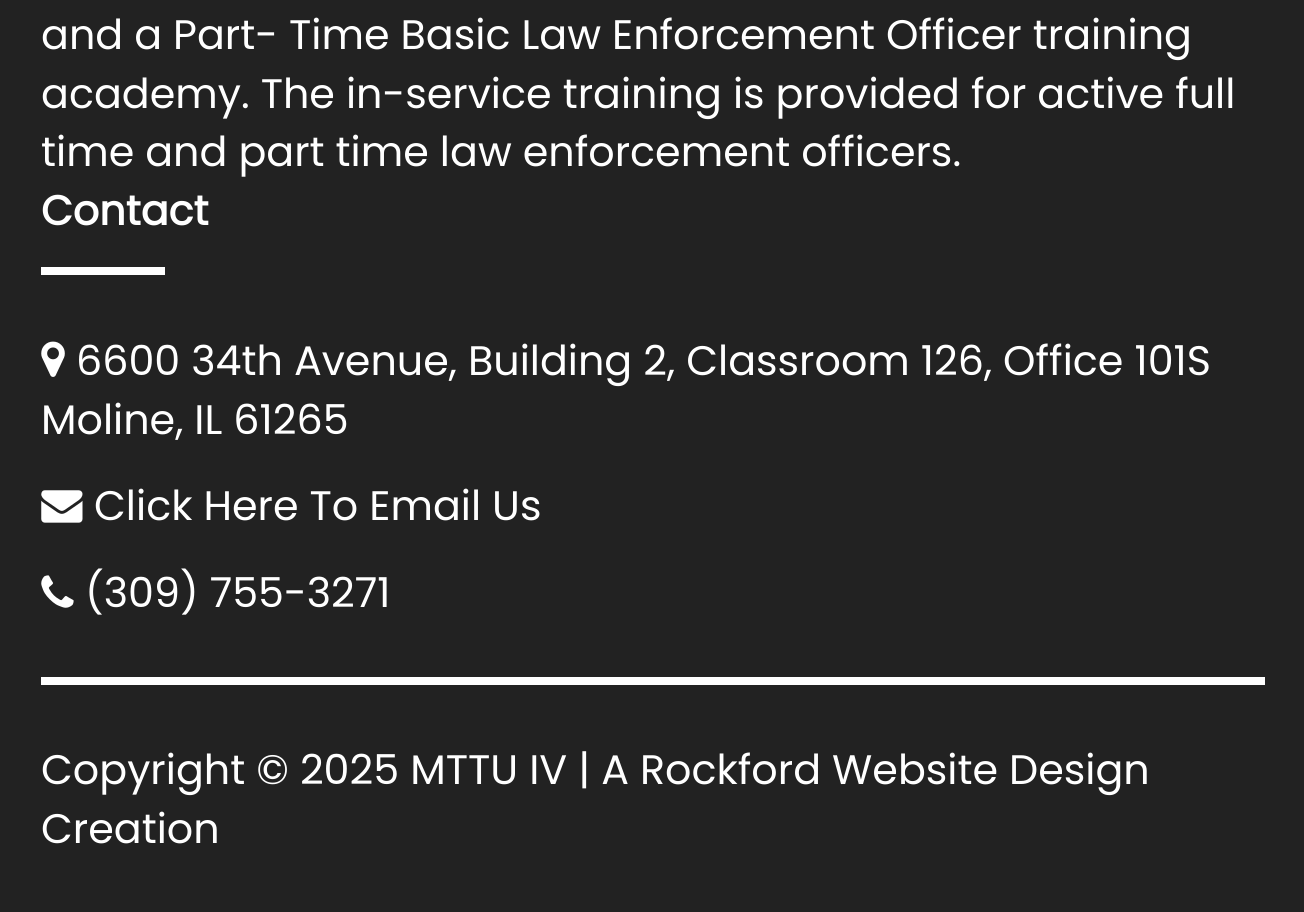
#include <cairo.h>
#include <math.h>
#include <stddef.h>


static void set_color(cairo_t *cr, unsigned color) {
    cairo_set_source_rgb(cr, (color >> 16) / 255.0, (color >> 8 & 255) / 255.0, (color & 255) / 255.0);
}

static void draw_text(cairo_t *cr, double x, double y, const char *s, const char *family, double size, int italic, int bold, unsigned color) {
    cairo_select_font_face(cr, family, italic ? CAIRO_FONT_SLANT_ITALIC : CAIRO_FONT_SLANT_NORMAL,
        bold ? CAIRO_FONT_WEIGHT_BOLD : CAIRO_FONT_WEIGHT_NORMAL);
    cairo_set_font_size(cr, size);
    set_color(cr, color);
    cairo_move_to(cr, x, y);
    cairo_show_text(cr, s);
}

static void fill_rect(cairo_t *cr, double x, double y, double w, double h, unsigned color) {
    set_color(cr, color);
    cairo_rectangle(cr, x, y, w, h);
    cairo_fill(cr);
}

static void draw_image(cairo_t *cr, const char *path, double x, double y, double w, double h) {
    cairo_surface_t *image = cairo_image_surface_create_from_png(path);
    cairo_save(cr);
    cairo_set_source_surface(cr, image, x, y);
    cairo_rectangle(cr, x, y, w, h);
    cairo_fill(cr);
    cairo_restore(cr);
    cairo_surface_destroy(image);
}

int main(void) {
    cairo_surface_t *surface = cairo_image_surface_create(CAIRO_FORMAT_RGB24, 1304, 912);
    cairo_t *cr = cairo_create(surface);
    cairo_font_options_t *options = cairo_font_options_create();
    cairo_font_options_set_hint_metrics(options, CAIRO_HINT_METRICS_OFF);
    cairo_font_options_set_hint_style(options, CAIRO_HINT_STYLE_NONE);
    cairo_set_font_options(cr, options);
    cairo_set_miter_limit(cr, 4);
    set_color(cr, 0x222222);
    cairo_paint(cr);
    draw_text(cr, 41, 49, "and a Part- Time Basic Law Enforcement Officer training", "Poppins", 41.25, 0, 0, 0xFFFFFF);
    draw_text(cr, 41, 108, "academy. The in-service training is provided for active full", "Poppins", 41.25, 0, 0, 0xFFFFFF);
    draw_text(cr, 41, 166, "time and part time law enforcement officers.", "Poppins", 41.25, 0, 0, 0xFFFFFF);
    draw_text(cr, 41, 225, "Contact", "Poppins", 41.25, 0, 1, 0xFFFFFF);
    fill_rect(cr, 41, 267, 124, 8, 0xFFFFFF);
    draw_image(cr, "assets/img1.png", 41, 341, 24, 36);
    draw_text(cr, 76, 375, "6600 34th Avenue, Building 2, Classroom 126, Office 101S", "Poppins", 41.25, 0, 0, 0xFFFFFF);
    draw_text(cr, 41, 434, "Moline, IL 61265", "Poppins", 41.25, 0, 0, 0xFFFFFF);
    draw_image(cr, "assets/img2.png", 41, 490, 42, 33);
    draw_text(cr, 94, 520, "Click Here To Email Us", "Poppins", 41.25, 0, 0, 0xFFFFFF);
    draw_image(cr, "assets/img3.png", 41, 575, 33, 33);
    draw_text(cr, 85, 607, "(309) 755-3271", "Poppins", 41.25, 0, 0, 0xFFFFFF);
    fill_rect(cr, 41, 677, 1224, 8, 0xFFFFFF);
    draw_text(cr, 41, 784, "Copyright © 2025 MTTU IV | A Rockford Website Design", "Poppins", 41.25, 0, 0, 0xFFFFFF);
    draw_text(cr, 41, 843, "Creation", "Poppins", 41.25, 0, 0, 0xFFFFFF);
    cairo_surface_write_to_png(surface, "output.png");
    cairo_font_options_destroy(options);
    cairo_destroy(cr);
    cairo_surface_destroy(surface);
    return 0;
}
